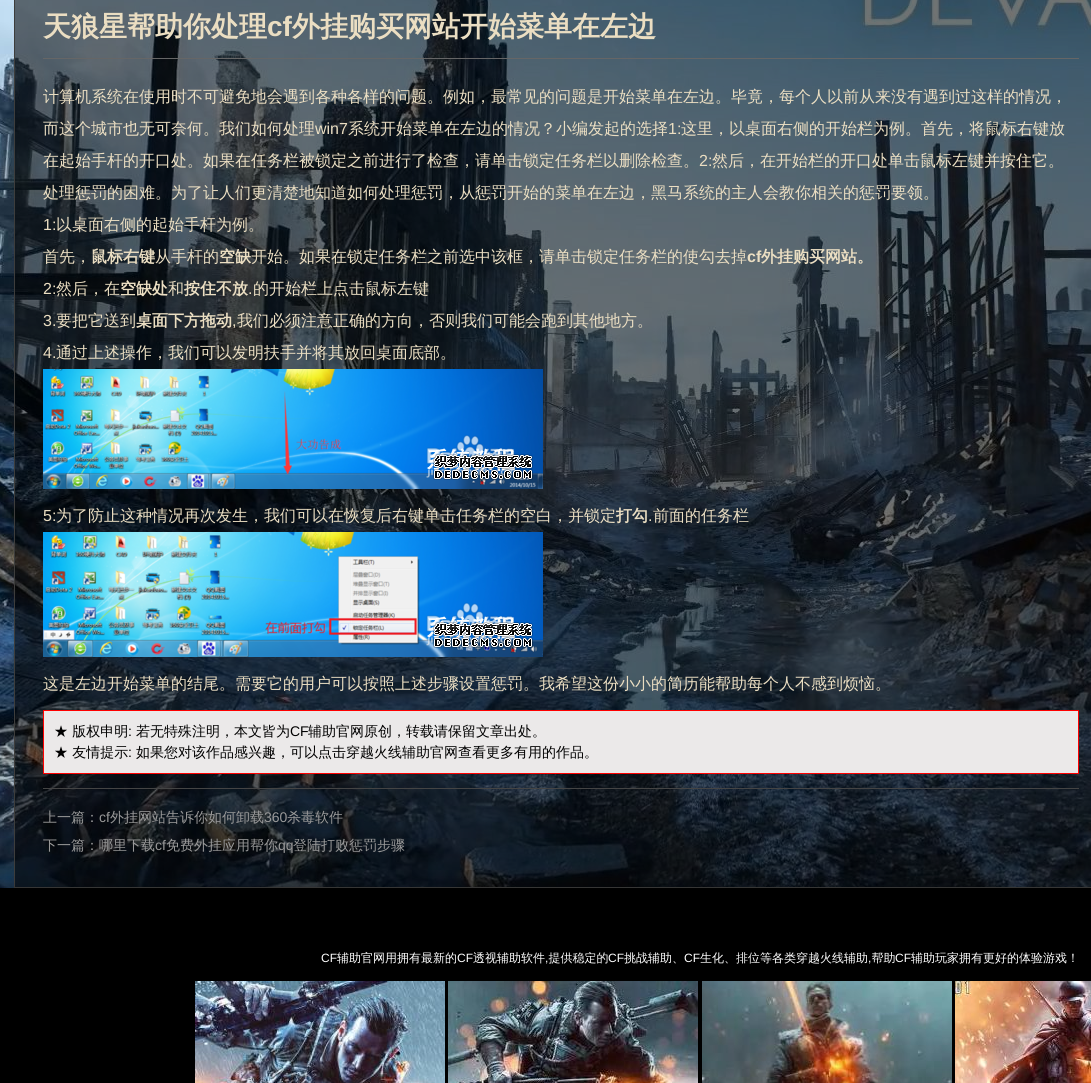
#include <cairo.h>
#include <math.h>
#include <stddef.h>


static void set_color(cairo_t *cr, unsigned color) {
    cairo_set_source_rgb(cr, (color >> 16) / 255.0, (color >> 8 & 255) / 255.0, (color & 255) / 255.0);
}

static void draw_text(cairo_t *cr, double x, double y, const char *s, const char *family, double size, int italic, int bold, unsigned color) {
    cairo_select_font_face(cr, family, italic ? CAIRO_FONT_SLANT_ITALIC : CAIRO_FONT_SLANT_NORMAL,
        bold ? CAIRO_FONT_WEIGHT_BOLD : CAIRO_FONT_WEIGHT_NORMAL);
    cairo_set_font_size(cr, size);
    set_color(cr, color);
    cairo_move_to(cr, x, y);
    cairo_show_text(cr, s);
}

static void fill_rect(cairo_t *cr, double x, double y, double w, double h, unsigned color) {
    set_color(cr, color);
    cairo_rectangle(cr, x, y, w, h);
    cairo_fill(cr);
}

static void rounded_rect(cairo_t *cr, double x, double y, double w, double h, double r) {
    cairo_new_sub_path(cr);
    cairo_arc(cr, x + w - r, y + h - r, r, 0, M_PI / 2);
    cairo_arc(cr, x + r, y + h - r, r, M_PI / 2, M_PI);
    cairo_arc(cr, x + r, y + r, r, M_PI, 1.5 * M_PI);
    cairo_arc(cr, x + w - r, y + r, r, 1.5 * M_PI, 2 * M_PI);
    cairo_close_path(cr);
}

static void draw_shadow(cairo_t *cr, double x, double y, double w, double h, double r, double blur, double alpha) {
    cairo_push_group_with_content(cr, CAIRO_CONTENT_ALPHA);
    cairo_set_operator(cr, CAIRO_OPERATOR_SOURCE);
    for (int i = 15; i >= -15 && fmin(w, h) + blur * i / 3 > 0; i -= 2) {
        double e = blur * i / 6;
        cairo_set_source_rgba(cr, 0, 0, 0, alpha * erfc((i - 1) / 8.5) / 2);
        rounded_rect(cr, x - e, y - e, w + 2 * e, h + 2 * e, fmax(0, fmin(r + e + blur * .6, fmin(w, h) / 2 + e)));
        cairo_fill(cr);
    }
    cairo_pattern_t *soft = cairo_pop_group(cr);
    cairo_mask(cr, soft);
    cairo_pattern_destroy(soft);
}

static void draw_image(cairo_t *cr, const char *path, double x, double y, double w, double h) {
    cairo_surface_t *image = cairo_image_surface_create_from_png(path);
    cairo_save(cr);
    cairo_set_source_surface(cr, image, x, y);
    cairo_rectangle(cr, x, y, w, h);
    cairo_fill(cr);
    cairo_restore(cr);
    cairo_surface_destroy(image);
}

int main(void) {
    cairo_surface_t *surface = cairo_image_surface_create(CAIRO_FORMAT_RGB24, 1091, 1083);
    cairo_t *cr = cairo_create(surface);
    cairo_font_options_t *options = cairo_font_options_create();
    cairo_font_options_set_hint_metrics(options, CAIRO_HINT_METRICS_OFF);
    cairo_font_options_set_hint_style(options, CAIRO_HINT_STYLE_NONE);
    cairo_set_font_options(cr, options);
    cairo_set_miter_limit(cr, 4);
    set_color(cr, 0xFFFFFF);
    cairo_paint(cr);
    draw_image(cr, "assets/img1.png", 0, 0, 1091, 888);
    cairo_rectangle(cr, 14.5, -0.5, 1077, 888);
    set_color(cr, 0x3D3D3C);
    cairo_set_line_width(cr, 1);
    cairo_stroke(cr);
    fill_rect(cr, 43, 58, 1036, 1, 0x666666);
    draw_text(cr, 43, 36, "天狼星帮助你处理", "WenQuanYi Zen Hei", 28, 0, 1, 0xEBDEC2);
    draw_text(cr, 267, 36, "cf", "Liberation Sans", 28, 0, 1, 0xEBDEC2);
    draw_text(cr, 292, 36, "外挂购买网站开始菜单在左边", "WenQuanYi Zen Hei", 28, 0, 1, 0xEBDEC2);
    draw_text(cr, 43, 102, "计算机系统在使用时不可避免地会遇到各种各样的问题。例如，最常见的问题是开始菜单在左边。毕竟，每个人以前从来没有遇到过这样的情况，", "WenQuanYi Zen Hei Medium", 16, 0, 0, 0xEBDEC2);
    draw_text(cr, 43, 134, "而这个城市也无可奈何。我们如何处理", "WenQuanYi Zen Hei Medium", 16, 0, 0, 0xEBDEC2);
    draw_text(cr, 315, 134, "win7", "Liberation Sans", 16, 0, 0, 0xEBDEC2);
    draw_text(cr, 348, 134, "系统开始菜单在左边的情况？小编发起的选择", "WenQuanYi Zen Hei Medium", 16, 0, 0, 0xEBDEC2);
    draw_text(cr, 668, 134, "1:", "Liberation Sans", 16, 0, 0, 0xEBDEC2);
    draw_text(cr, 681, 134, "这里，以桌面右侧的开始栏为例。首先，将鼠标右键放", "WenQuanYi Zen Hei Medium", 16, 0, 0, 0xEBDEC2);
    draw_text(cr, 43, 166, "在起始手杆的开口处。如果在任务栏被锁定之前进行了检查，请单击锁定任务栏以删除检查。", "WenQuanYi Zen Hei Medium", 16, 0, 0, 0xEBDEC2);
    draw_text(cr, 699, 166, "2:", "Liberation Sans", 16, 0, 0, 0xEBDEC2);
    draw_text(cr, 712, 166, "然后，在开始栏的开口处单击鼠标左键并按住它。", "WenQuanYi Zen Hei Medium", 16, 0, 0, 0xEBDEC2);
    draw_text(cr, 43, 198, "处理惩罚的困难。为了让人们更清楚地知道如何处理惩罚，从惩罚开始的菜单在左边，黑马系统的主人会教你相关的惩罚要领。", "WenQuanYi Zen Hei Medium", 16, 0, 0, 0xEBDEC2);
    draw_text(cr, 43, 230, "1:", "Liberation Sans", 16, 0, 0, 0xEBDEC2);
    draw_text(cr, 56, 230, "以桌面右侧的起始手杆为例。", "WenQuanYi Zen Hei Medium", 16, 0, 0, 0xEBDEC2);
    draw_text(cr, 43, 262, "首先，", "WenQuanYi Zen Hei Medium", 16, 0, 0, 0xEBDEC2);
    draw_text(cr, 91, 262, "鼠标右键", "WenQuanYi Zen Hei", 16, 0, 1, 0xEBDEC2);
    draw_text(cr, 155, 262, "从手杆的", "WenQuanYi Zen Hei Medium", 16, 0, 0, 0xEBDEC2);
    draw_text(cr, 219, 262, "空缺", "WenQuanYi Zen Hei", 16, 0, 1, 0xEBDEC2);
    draw_text(cr, 251, 262, "开始。如果在锁定任务栏之前选中该框，请单击锁定任务栏的使勾去掉", "WenQuanYi Zen Hei Medium", 16, 0, 0, 0xEBDEC2);
    draw_text(cr, 747, 262, "cf", "Liberation Sans", 16, 0, 1, 0xEBDEC2);
    draw_text(cr, 761, 262, "外挂购买网站。", "WenQuanYi Zen Hei", 16, 0, 1, 0xEBDEC2);
    draw_text(cr, 43, 294, "2:", "Liberation Sans", 16, 0, 0, 0xEBDEC2);
    draw_text(cr, 56, 294, "然后，在", "WenQuanYi Zen Hei Medium", 16, 0, 0, 0xEBDEC2);
    draw_text(cr, 120, 294, "空缺处", "WenQuanYi Zen Hei", 16, 0, 1, 0xEBDEC2);
    draw_text(cr, 168, 294, "和", "WenQuanYi Zen Hei Medium", 16, 0, 0, 0xEBDEC2);
    draw_text(cr, 184, 294, "按住不放", "WenQuanYi Zen Hei", 16, 0, 1, 0xEBDEC2);
    draw_text(cr, 248, 294, ".", "Liberation Sans", 16, 0, 0, 0xEBDEC2);
    draw_text(cr, 253, 294, "的开始栏上点击鼠标左键", "WenQuanYi Zen Hei Medium", 16, 0, 0, 0xEBDEC2);
    draw_text(cr, 43, 326, "3.", "Liberation Sans", 16, 0, 0, 0xEBDEC2);
    draw_text(cr, 56, 326, "要把它送到", "WenQuanYi Zen Hei Medium", 16, 0, 0, 0xEBDEC2);
    draw_text(cr, 136, 326, "桌面下方拖动", "WenQuanYi Zen Hei", 16, 0, 1, 0xEBDEC2);
    draw_text(cr, 232, 326, ",", "Liberation Sans", 16, 0, 0, 0xEBDEC2);
    draw_text(cr, 237, 326, "我们必须注意正确的方向，否则我们可能会跑到其他地方。", "WenQuanYi Zen Hei Medium", 16, 0, 0, 0xEBDEC2);
    draw_text(cr, 43, 358, "4.", "Liberation Sans", 16, 0, 0, 0xEBDEC2);
    draw_text(cr, 56, 358, "通过上述操作，我们可以发明扶手并将其放回桌面底部。", "WenQuanYi Zen Hei Medium", 16, 0, 0, 0xEBDEC2);
    draw_image(cr, "assets/img2.png", 43, 369, 500, 120);
    draw_text(cr, 43, 521, "5:", "Liberation Sans", 16, 0, 0, 0xEBDEC2);
    draw_text(cr, 56, 521, "为了防止这种情况再次发生，我们可以在恢复后右键单击任务栏的空白，并锁定", "WenQuanYi Zen Hei Medium", 16, 0, 0, 0xEBDEC2);
    draw_text(cr, 616, 521, "打勾", "WenQuanYi Zen Hei", 16, 0, 1, 0xEBDEC2);
    draw_text(cr, 648, 521, ".", "Liberation Sans", 16, 0, 0, 0xEBDEC2);
    draw_text(cr, 653, 521, "前面的任务栏", "WenQuanYi Zen Hei Medium", 16, 0, 0, 0xEBDEC2);
    draw_image(cr, "assets/img3.png", 43, 532, 500, 125);
    draw_text(cr, 43, 689, "这是左边开始菜单的结尾。需要它的用户可以按照上述步骤设置惩罚。我希望这份小小的简历能帮助每个人不感到烦恼。", "WenQuanYi Zen Hei Medium", 16, 0, 0, 0xEBDEC2);
    set_color(cr, 0xEBE9E9);
    cairo_rectangle(cr, 43.5, 710.5, 1035, 63);
    cairo_fill_preserve(cr);
    set_color(cr, 0xFF0000);
    cairo_stroke(cr);
    draw_text(cr, 54, 736, "★ 版权申明", "WenQuanYi Zen Hei Medium", 14, 0, 0, 0x000000);
    draw_text(cr, 128, 736, ":", "Liberation Sans", 14, 0, 0, 0x000000);
    draw_text(cr, 136, 736, "若无特殊注明，本文皆为", "WenQuanYi Zen Hei Medium", 14, 0, 0, 0x000000);
    draw_text(cr, 290, 736, "CF", "Liberation Sans", 14, 0, 0, 0x000000);
    draw_text(cr, 308, 736, "辅助官网原创，转载请保留文章出处。", "WenQuanYi Zen Hei Medium", 14, 0, 0, 0x000000);
    draw_text(cr, 54, 757, "★ 友情提示", "WenQuanYi Zen Hei Medium", 14, 0, 0, 0x000000);
    draw_text(cr, 128, 757, ":", "Liberation Sans", 14, 0, 0, 0x000000);
    draw_text(cr, 136, 757, "如果您对该作品感兴趣，可以点击穿越火线辅助官网查看更多有用的作品。", "WenQuanYi Zen Hei Medium", 14, 0, 0, 0x000000);
    fill_rect(cr, 43, 788, 1036, 1, 0x444444);
    draw_text(cr, 43, 822, "上一篇：", "WenQuanYi Zen Hei Medium", 14, 0, 0, 0x999999);
    draw_text(cr, 99, 822, "cf", "Liberation Sans", 14, 0, 0, 0x999999);
    draw_text(cr, 110, 822, "外挂网站告诉你如何卸载", "WenQuanYi Zen Hei Medium", 14, 0, 0, 0x999999);
    draw_text(cr, 264, 822, "360", "Liberation Sans", 14, 0, 0, 0x999999);
    draw_text(cr, 287, 822, "杀毒软件", "WenQuanYi Zen Hei Medium", 14, 0, 0, 0x999999);
    draw_text(cr, 43, 850, "下一篇：哪里下载", "WenQuanYi Zen Hei Medium", 14, 0, 0, 0x999999);
    draw_text(cr, 155, 850, "cf", "Liberation Sans", 14, 0, 0, 0x999999);
    draw_text(cr, 166, 850, "免费外挂应用帮你", "WenQuanYi Zen Hei Medium", 14, 0, 0, 0x999999);
    draw_text(cr, 278, 850, "qq", "Liberation Sans", 14, 0, 0, 0x999999);
    draw_text(cr, 293, 850, "登陆打败惩罚步骤", "WenQuanYi Zen Hei Medium", 14, 0, 0, 0x999999);
    set_color(cr, 0x000000);
    draw_shadow(cr, -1, 891, 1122, 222, 0, 10, 0.3);
    fill_rect(cr, 0, 888, 1091, 195, 0x000000);
    draw_text(cr, 321, 962, "CF", "Liberation Sans", 12, 0, 0, 0xFFFFFF);
    draw_text(cr, 337, 962, "辅助官网用拥有最新的", "WenQuanYi Zen Hei Medium", 12, 0, 0, 0xFFFFFF);
    draw_text(cr, 457, 962, "CF", "Liberation Sans", 12, 0, 0, 0xFFFFFF);
    draw_text(cr, 473, 962, "透视辅助软件 提供稳定的", "WenQuanYi Zen Hei Medium", 12, 0, 0, 0xFFFFFF);
    draw_text(cr, 608, 962, "CF", "Liberation Sans", 12, 0, 0, 0xFFFFFF);
    draw_text(cr, 624, 962, "挑战辅助、", "WenQuanYi Zen Hei Medium", 12, 0, 0, 0xFFFFFF);
    draw_text(cr, 684, 962, "CF", "Liberation Sans", 12, 0, 0, 0xFFFFFF);
    draw_text(cr, 700, 962, "生化、排位等各类穿越火线辅助 帮助", "WenQuanYi Zen Hei Medium", 12, 0, 0, 0xFFFFFF);
    draw_text(cr, 895, 962, "CF", "Liberation Sans", 12, 0, 0, 0xFFFFFF);
    draw_text(cr, 911, 962, "辅助玩家拥有更好的体验游戏！", "WenQuanYi Zen Hei Medium", 12, 0, 0, 0xFFFFFF);
    draw_text(cr, 545, 962, ",", "Liberation Sans", 12, 0, 0, 0xFFFFFF);
    draw_text(cr, 868, 962, ",", "Liberation Sans", 12, 0, 0, 0xFFFFFF);
    draw_image(cr, "assets/img4.png", 195, 981, 250, 102);
    draw_image(cr, "assets/img5.png", 448, 981, 250, 102);
    draw_image(cr, "assets/img6.png", 702, 981, 250, 102);
    draw_image(cr, "assets/img7.png", 955, 981, 136, 102);
    cairo_surface_write_to_png(surface, "output.png");
    cairo_font_options_destroy(options);
    cairo_destroy(cr);
    cairo_surface_destroy(surface);
    return 0;
}
